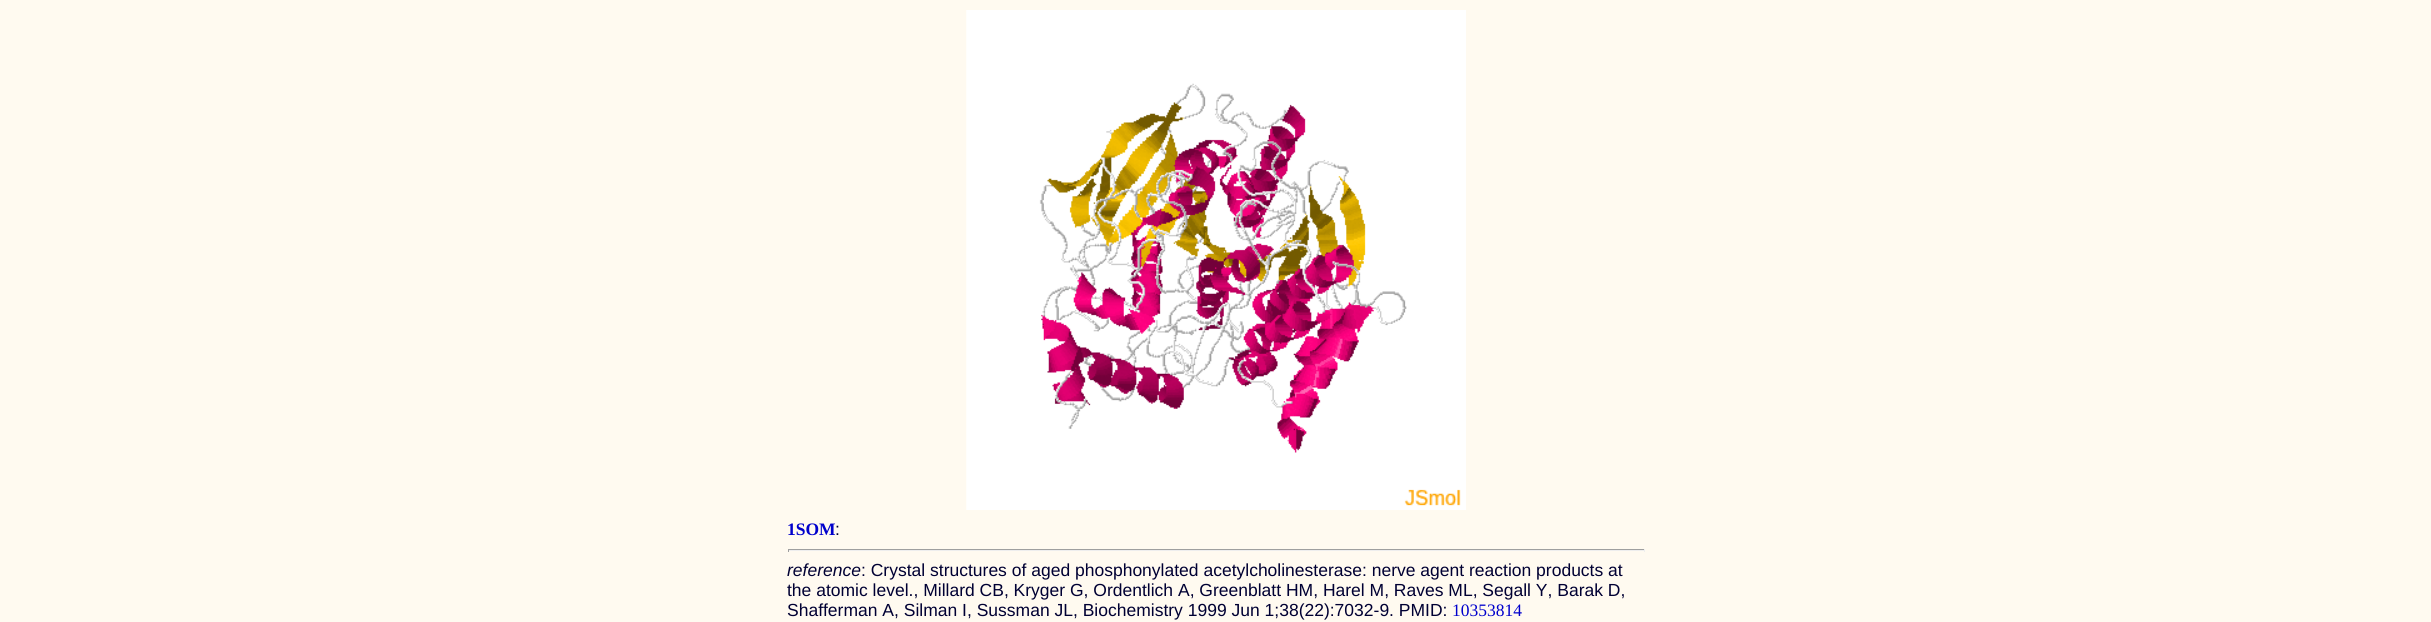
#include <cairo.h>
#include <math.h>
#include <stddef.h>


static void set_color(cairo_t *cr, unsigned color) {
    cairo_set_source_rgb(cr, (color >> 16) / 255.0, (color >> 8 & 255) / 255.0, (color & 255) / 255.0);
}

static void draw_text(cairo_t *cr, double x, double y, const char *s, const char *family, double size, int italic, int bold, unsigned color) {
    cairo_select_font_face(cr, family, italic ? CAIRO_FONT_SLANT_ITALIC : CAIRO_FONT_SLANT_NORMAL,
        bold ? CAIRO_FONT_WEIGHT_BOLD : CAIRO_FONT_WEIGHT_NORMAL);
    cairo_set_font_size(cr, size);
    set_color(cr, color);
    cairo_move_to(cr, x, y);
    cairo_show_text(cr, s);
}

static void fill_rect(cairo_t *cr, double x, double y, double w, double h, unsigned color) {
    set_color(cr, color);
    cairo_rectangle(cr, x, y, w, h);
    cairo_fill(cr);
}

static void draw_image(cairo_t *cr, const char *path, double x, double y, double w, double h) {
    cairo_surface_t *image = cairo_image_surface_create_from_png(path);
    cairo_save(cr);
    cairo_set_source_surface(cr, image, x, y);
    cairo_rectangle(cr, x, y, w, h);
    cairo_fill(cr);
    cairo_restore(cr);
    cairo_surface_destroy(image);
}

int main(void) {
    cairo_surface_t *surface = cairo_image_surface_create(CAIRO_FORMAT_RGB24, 2431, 622);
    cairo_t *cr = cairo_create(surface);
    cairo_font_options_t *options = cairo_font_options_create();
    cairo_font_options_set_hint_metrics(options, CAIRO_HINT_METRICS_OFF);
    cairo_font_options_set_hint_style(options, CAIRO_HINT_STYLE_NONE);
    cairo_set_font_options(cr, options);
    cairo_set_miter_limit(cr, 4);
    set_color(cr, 0xFFFAF0);
    cairo_paint(cr);
    draw_image(cr, "assets/img1.png", 966, 10, 500, 500);
    draw_text(cr, 787, 535, "1SOM", "Liberation Serif", 17.5, 0, 1, 0x0000CC);
    draw_text(cr, 835, 535, ":", "Liberation Sans", 17.5, 0, 0, 0x000033);
    fill_rect(cr, 788, 549, 857, 1, 0x9F9F9F);
    fill_rect(cr, 1644, 549, 1, 3, 0xEEEEEE);
    fill_rect(cr, 788, 550, 857, 1, 0xEEEEEE);
    fill_rect(cr, 788, 549, 1, 3, 0x9F9F9F);
    draw_text(cr, 787, 576, "reference", "Liberation Sans", 17.5, 1, 0, 0x000033);
    draw_text(cr, 861, 576, ": Crystal structures of aged phosphonylated acetylcholinesterase: nerve agent reaction products at", "Liberation Sans", 17.5, 0, 0, 0x000033);
    draw_text(cr, 787, 596, "the atomic level., Millard CB, Kryger G, Ordentlich A, Greenblatt HM, Harel M, Raves ML, Segall Y, Barak D,", "Liberation Sans", 17.5, 0, 0, 0x000033);
    draw_text(cr, 787, 616, "Shafferman A, Silman I, Sussman JL, Biochemistry 1999 Jun 1;38(22):7032-9. PMID:", "Liberation Sans", 17.5, 0, 0, 0x000033);
    draw_text(cr, 1452, 616, "10353814", "Liberation Serif", 17.5, 0, 0, 0x0000CC);
    cairo_surface_write_to_png(surface, "output.png");
    cairo_font_options_destroy(options);
    cairo_destroy(cr);
    cairo_surface_destroy(surface);
    return 0;
}
